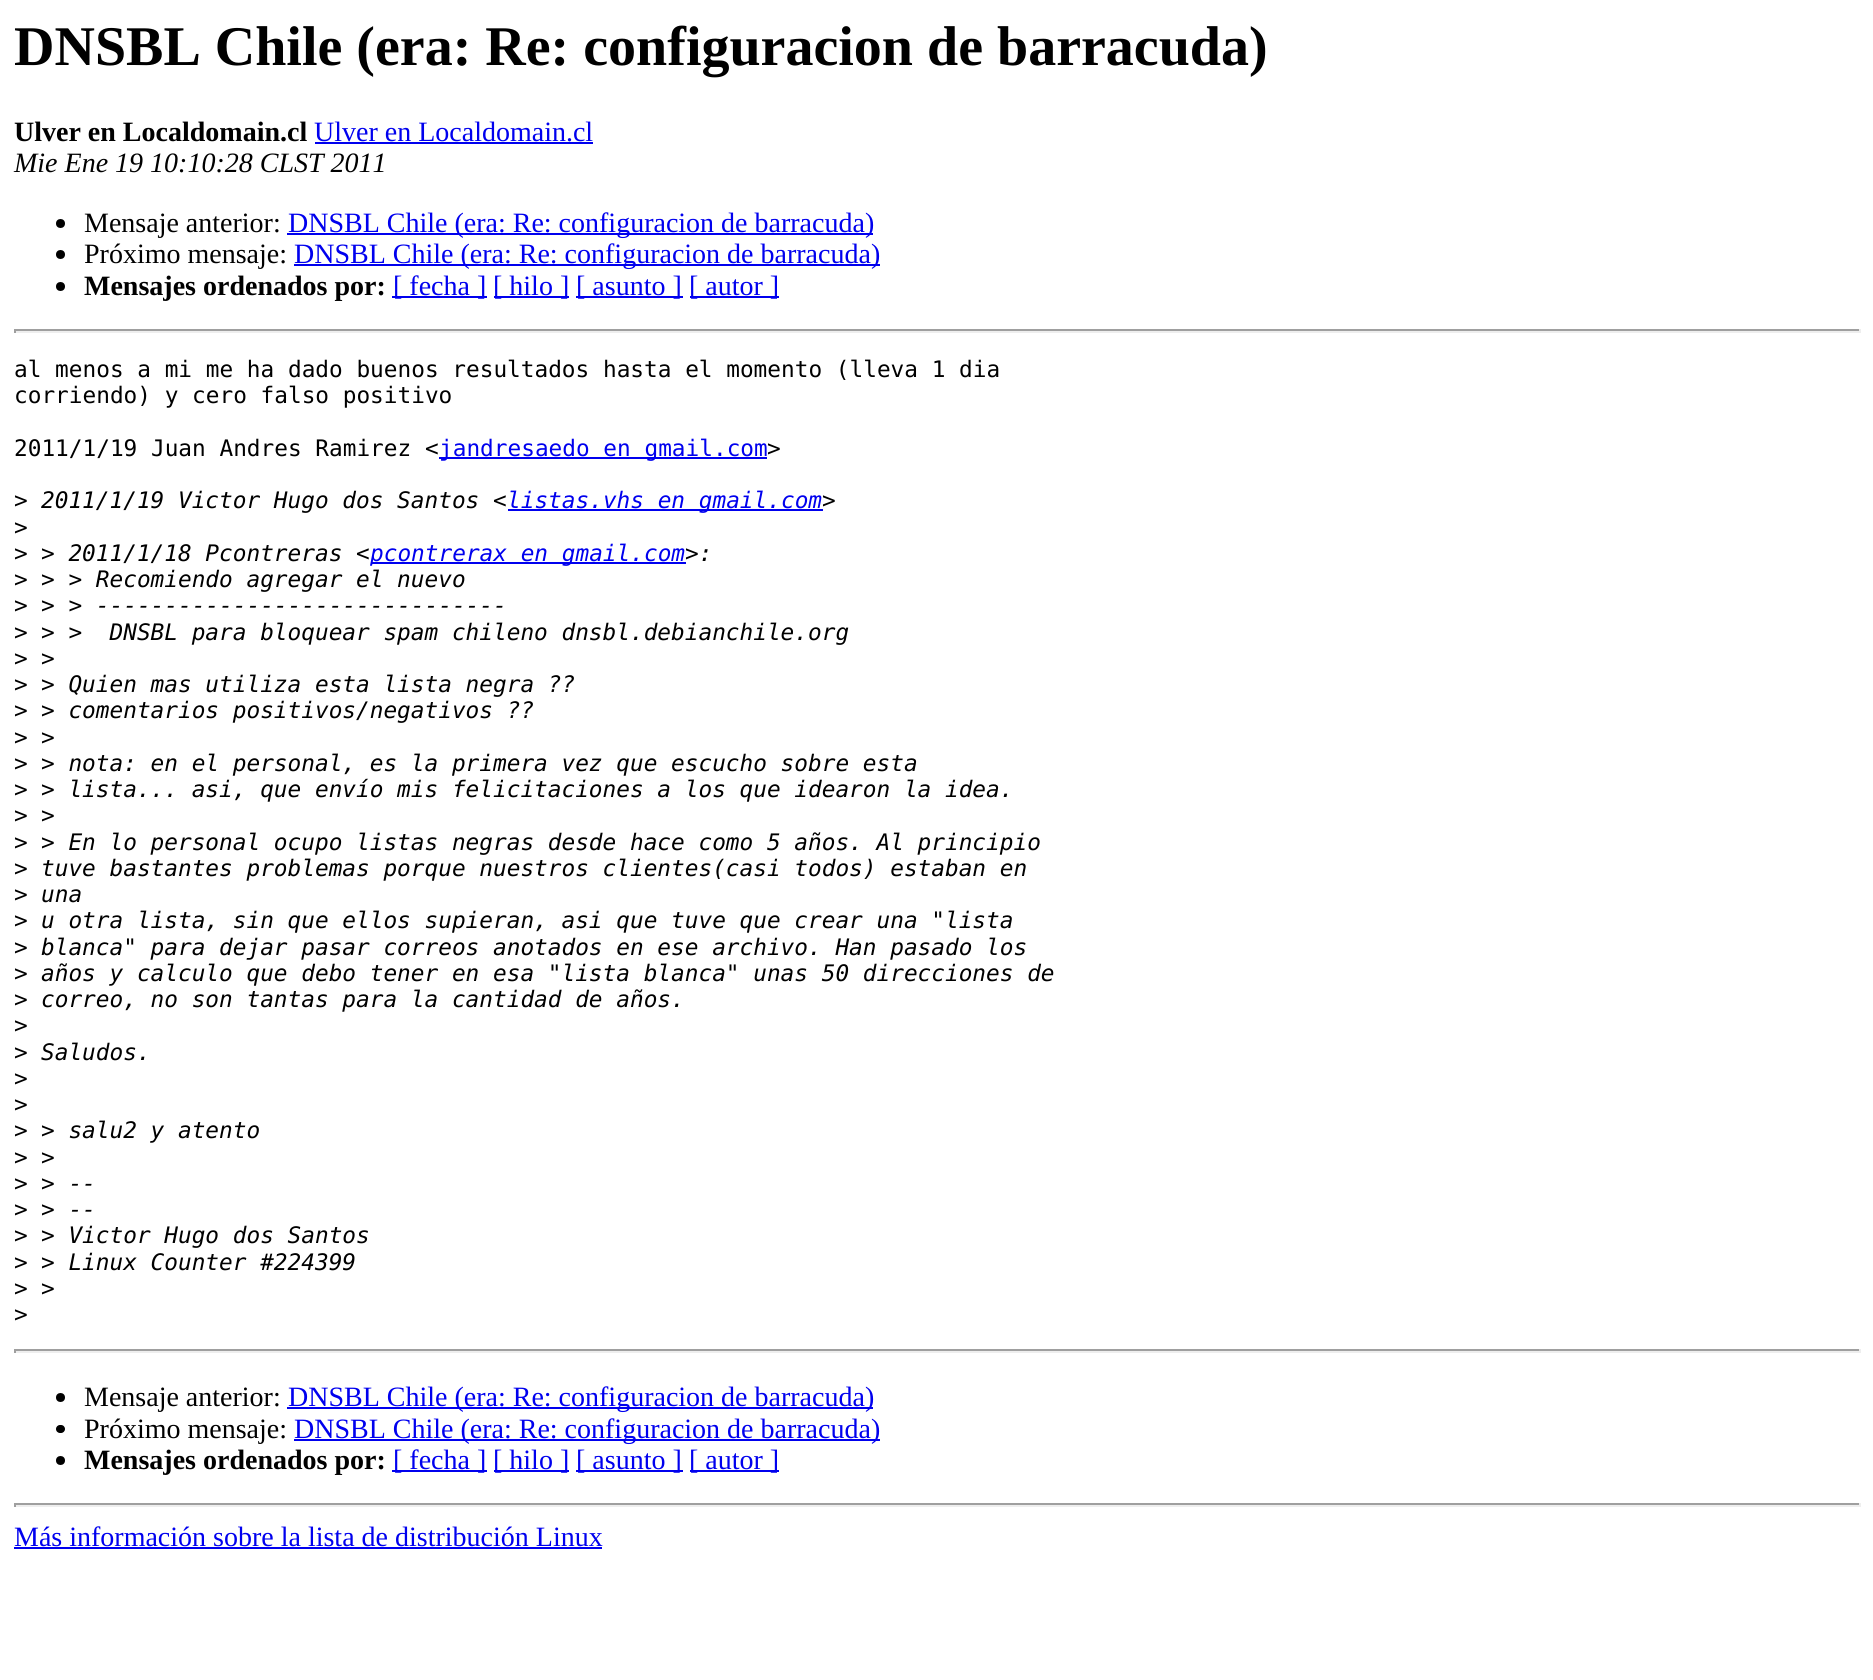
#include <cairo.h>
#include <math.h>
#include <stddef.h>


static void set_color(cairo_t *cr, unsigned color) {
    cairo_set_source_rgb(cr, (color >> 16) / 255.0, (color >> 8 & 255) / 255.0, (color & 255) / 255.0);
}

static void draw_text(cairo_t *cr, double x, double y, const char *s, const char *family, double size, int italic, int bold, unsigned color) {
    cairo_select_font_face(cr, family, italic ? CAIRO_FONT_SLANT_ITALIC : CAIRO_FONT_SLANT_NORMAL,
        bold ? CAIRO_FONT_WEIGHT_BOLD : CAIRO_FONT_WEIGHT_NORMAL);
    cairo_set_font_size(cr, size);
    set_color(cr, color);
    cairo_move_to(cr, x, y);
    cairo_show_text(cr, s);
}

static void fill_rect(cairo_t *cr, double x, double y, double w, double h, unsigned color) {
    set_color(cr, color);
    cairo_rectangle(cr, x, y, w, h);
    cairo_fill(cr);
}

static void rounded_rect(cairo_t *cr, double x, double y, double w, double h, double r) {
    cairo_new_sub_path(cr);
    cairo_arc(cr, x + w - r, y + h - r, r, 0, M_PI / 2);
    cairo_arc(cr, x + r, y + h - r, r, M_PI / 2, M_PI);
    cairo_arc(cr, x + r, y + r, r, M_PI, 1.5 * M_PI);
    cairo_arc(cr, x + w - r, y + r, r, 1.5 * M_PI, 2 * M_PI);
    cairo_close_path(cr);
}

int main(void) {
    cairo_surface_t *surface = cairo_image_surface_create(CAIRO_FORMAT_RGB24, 1873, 1680);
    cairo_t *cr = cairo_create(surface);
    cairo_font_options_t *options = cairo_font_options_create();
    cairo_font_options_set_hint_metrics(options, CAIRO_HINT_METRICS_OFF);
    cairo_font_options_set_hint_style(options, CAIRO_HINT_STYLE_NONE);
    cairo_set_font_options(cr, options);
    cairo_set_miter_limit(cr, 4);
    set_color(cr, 0xFFFFFF);
    cairo_paint(cr);
    draw_text(cr, 14, 65, "DNSBL Chile (era: Re: configuracion de barracuda)", "Liberation Serif", 56, 0, 1, 0x000000);
    draw_text(cr, 14, 141, "Ulver en Localdomain.cl", "Liberation Serif", 28, 0, 1, 0x000000);
    draw_text(cr, 314, 141, "Ulver en Localdomain.cl", "Liberation Serif", 28, 0, 0, 0x0000EE);
    fill_rect(cr, 315, 142, 278, 2, 0x0000EE);
    draw_text(cr, 14, 172, "Mie Ene 19 10:10:28 CLST 2011", "Liberation Serif", 28, 1, 0, 0x000000);
    cairo_new_path(cr);
    cairo_arc(cr, 60.5, 223.5, 4.5, 0, 2 * M_PI);
    cairo_fill(cr);
    draw_text(cr, 84, 232, "Mensaje anterior:", "Liberation Serif", 28, 0, 0, 0x000000);
    fill_rect(cr, 287, 233, 586, 2, 0x0000EE);
    draw_text(cr, 288, 232, "DNSBL Chile (era: Re: configuracion de barracuda)", "Liberation Serif", 28, 0, 0, 0x0000EE);
    set_color(cr, 0x000000);
    cairo_new_path(cr);
    cairo_arc(cr, 60.5, 254.5, 4.5, 0, 2 * M_PI);
    cairo_fill(cr);
    draw_text(cr, 84, 263, "Próximo mensaje:", "Liberation Serif", 28, 0, 0, 0x000000);
    fill_rect(cr, 294, 264, 586, 2, 0x0000EE);
    draw_text(cr, 294, 263, "DNSBL Chile (era: Re: configuracion de barracuda)", "Liberation Serif", 28, 0, 0, 0x0000EE);
    set_color(cr, 0x000000);
    cairo_new_path(cr);
    cairo_arc(cr, 60.5, 286.5, 4.5, 0, 2 * M_PI);
    cairo_fill(cr);
    draw_text(cr, 84, 295, "Mensajes ordenados por:", "Liberation Serif", 28, 0, 1, 0x000000);
    fill_rect(cr, 392, 296, 95, 2, 0x0000EE);
    draw_text(cr, 393, 295, "[ fecha ]", "Liberation Serif", 28, 0, 0, 0x0000EE);
    fill_rect(cr, 494, 296, 75, 2, 0x0000EE);
    draw_text(cr, 493, 295, "[ hilo ]", "Liberation Serif", 28, 0, 0, 0x0000EE);
    fill_rect(cr, 576, 296, 107, 2, 0x0000EE);
    draw_text(cr, 576, 295, "[ asunto ]", "Liberation Serif", 28, 0, 0, 0x0000EE);
    fill_rect(cr, 690, 296, 89, 2, 0x0000EE);
    draw_text(cr, 689, 295, "[ autor ]", "Liberation Serif", 28, 0, 0, 0x0000EE);
    fill_rect(cr, 14, 329, 1846, 2, 0x9F9F9F);
    fill_rect(cr, 1859, 329, 2, 4, 0xEEEEEE);
    fill_rect(cr, 14, 331, 1846, 2, 0xEEEEEE);
    fill_rect(cr, 14, 329, 2, 4, 0x9F9F9F);
    draw_text(cr, 14, 377, "al menos a mi me ha dado buenos resultados hasta el momento (lleva 1 dia", "DejaVu Sans Mono", 22.75, 0, 0, 0x000000);
    draw_text(cr, 14, 403, "corriendo) y cero falso positivo", "DejaVu Sans Mono", 22.75, 0, 0, 0x000000);
    draw_text(cr, 14, 456, "2011/1/19 Juan Andres Ramirez <", "DejaVu Sans Mono", 22.75, 0, 0, 0x000000);
    fill_rect(cr, 439, 457, 328, 2, 0x0000EE);
    draw_text(cr, 439, 456, "jandresaedo en gmail.com", "DejaVu Sans Mono", 22.75, 0, 0, 0x0000EE);
    draw_text(cr, 767, 456, ">", "DejaVu Sans Mono", 22.75, 0, 0, 0x000000);
    draw_text(cr, 14, 508, ">", "DejaVu Sans Mono", 22.75, 0, 0, 0x000000);
    draw_text(cr, 41, 508, "2011/1/19 Victor Hugo dos Santos <", "DejaVu Sans Mono", 22.75, 1, 0, 0x000000);
    fill_rect(cr, 508, 509, 315, 2, 0x0000EE);
    draw_text(cr, 507, 508, "listas.vhs en gmail.com", "DejaVu Sans Mono", 22.75, 1, 0, 0x0000EE);
    draw_text(cr, 822, 508, ">", "DejaVu Sans Mono", 22.75, 1, 0, 0x000000);
    draw_text(cr, 14, 535, ">", "DejaVu Sans Mono", 22.75, 0, 0, 0x000000);
    draw_text(cr, 14, 561, ">", "DejaVu Sans Mono", 22.75, 0, 0, 0x000000);
    draw_text(cr, 41, 561, "> 2011/1/18 Pcontreras <", "DejaVu Sans Mono", 22.75, 1, 0, 0x000000);
    fill_rect(cr, 371, 562, 315, 2, 0x0000EE);
    draw_text(cr, 370, 561, "pcontrerax en gmail.com", "DejaVu Sans Mono", 22.75, 1, 0, 0x0000EE);
    draw_text(cr, 685, 561, ">:", "DejaVu Sans Mono", 22.75, 1, 0, 0x000000);
    draw_text(cr, 14, 587, ">", "DejaVu Sans Mono", 22.75, 0, 0, 0x000000);
    draw_text(cr, 41, 587, "> > Recomiendo agregar el nuevo", "DejaVu Sans Mono", 22.75, 1, 0, 0x000000);
    draw_text(cr, 14, 613, ">", "DejaVu Sans Mono", 22.75, 0, 0, 0x000000);
    draw_text(cr, 41, 613, "> > ------------------------------", "DejaVu Sans Mono", 22.75, 1, 0, 0x000000);
    draw_text(cr, 14, 640, ">", "DejaVu Sans Mono", 22.75, 0, 0, 0x000000);
    draw_text(cr, 41, 640, "> >  DNSBL para bloquear spam chileno dnsbl.debianchile.org", "DejaVu Sans Mono", 22.75, 1, 0, 0x000000);
    draw_text(cr, 14, 666, ">", "DejaVu Sans Mono", 22.75, 0, 0, 0x000000);
    draw_text(cr, 41, 666, ">", "DejaVu Sans Mono", 22.75, 1, 0, 0x000000);
    draw_text(cr, 14, 692, ">", "DejaVu Sans Mono", 22.75, 0, 0, 0x000000);
    draw_text(cr, 41, 692, "> Quien mas utiliza esta lista negra ?\077", "DejaVu Sans Mono", 22.75, 1, 0, 0x000000);
    draw_text(cr, 14, 718, ">", "DejaVu Sans Mono", 22.75, 0, 0, 0x000000);
    draw_text(cr, 41, 718, "> comentarios positivos/negativos ?\077", "DejaVu Sans Mono", 22.75, 1, 0, 0x000000);
    draw_text(cr, 14, 745, ">", "DejaVu Sans Mono", 22.75, 0, 0, 0x000000);
    draw_text(cr, 41, 745, ">", "DejaVu Sans Mono", 22.75, 1, 0, 0x000000);
    draw_text(cr, 14, 771, ">", "DejaVu Sans Mono", 22.75, 0, 0, 0x000000);
    draw_text(cr, 41, 771, "> nota: en el personal, es la primera vez que escucho sobre esta", "DejaVu Sans Mono", 22.75, 1, 0, 0x000000);
    draw_text(cr, 14, 797, ">", "DejaVu Sans Mono", 22.75, 0, 0, 0x000000);
    draw_text(cr, 41, 797, "> lista... asi, que envío mis felicitaciones a los que idearon la idea.", "DejaVu Sans Mono", 22.75, 1, 0, 0x000000);
    draw_text(cr, 14, 823, ">", "DejaVu Sans Mono", 22.75, 0, 0, 0x000000);
    draw_text(cr, 41, 823, ">", "DejaVu Sans Mono", 22.75, 1, 0, 0x000000);
    draw_text(cr, 14, 850, ">", "DejaVu Sans Mono", 22.75, 0, 0, 0x000000);
    draw_text(cr, 41, 850, "> En lo personal ocupo listas negras desde hace como 5 años. Al principio", "DejaVu Sans Mono", 22.75, 1, 0, 0x000000);
    draw_text(cr, 14, 876, ">", "DejaVu Sans Mono", 22.75, 0, 0, 0x000000);
    draw_text(cr, 41, 876, "tuve bastantes problemas porque nuestros clientes(casi todos) estaban en", "DejaVu Sans Mono", 22.75, 1, 0, 0x000000);
    draw_text(cr, 14, 902, ">", "DejaVu Sans Mono", 22.75, 0, 0, 0x000000);
    draw_text(cr, 41, 902, "una", "DejaVu Sans Mono", 22.75, 1, 0, 0x000000);
    draw_text(cr, 14, 928, ">", "DejaVu Sans Mono", 22.75, 0, 0, 0x000000);
    draw_text(cr, 41, 928, "u otra lista, sin que ellos supieran, asi que tuve que crear una \"lista", "DejaVu Sans Mono", 22.75, 1, 0, 0x000000);
    draw_text(cr, 14, 955, ">", "DejaVu Sans Mono", 22.75, 0, 0, 0x000000);
    draw_text(cr, 41, 955, "blanca\" para dejar pasar correos anotados en ese archivo. Han pasado los", "DejaVu Sans Mono", 22.75, 1, 0, 0x000000);
    draw_text(cr, 14, 981, ">", "DejaVu Sans Mono", 22.75, 0, 0, 0x000000);
    draw_text(cr, 41, 981, "años y calculo que debo tener en esa \"lista blanca\" unas 50 direcciones de", "DejaVu Sans Mono", 22.75, 1, 0, 0x000000);
    draw_text(cr, 14, 1007, ">", "DejaVu Sans Mono", 22.75, 0, 0, 0x000000);
    draw_text(cr, 41, 1007, "correo, no son tantas para la cantidad de años.", "DejaVu Sans Mono", 22.75, 1, 0, 0x000000);
    draw_text(cr, 14, 1033, ">", "DejaVu Sans Mono", 22.75, 0, 0, 0x000000);
    draw_text(cr, 14, 1060, ">", "DejaVu Sans Mono", 22.75, 0, 0, 0x000000);
    draw_text(cr, 41, 1060, "Saludos.", "DejaVu Sans Mono", 22.75, 1, 0, 0x000000);
    draw_text(cr, 14, 1086, ">", "DejaVu Sans Mono", 22.75, 0, 0, 0x000000);
    draw_text(cr, 14, 1112, ">", "DejaVu Sans Mono", 22.75, 0, 0, 0x000000);
    draw_text(cr, 14, 1138, ">", "DejaVu Sans Mono", 22.75, 0, 0, 0x000000);
    draw_text(cr, 41, 1138, "> salu2 y atento", "DejaVu Sans Mono", 22.75, 1, 0, 0x000000);
    draw_text(cr, 14, 1165, ">", "DejaVu Sans Mono", 22.75, 0, 0, 0x000000);
    draw_text(cr, 41, 1165, ">", "DejaVu Sans Mono", 22.75, 1, 0, 0x000000);
    draw_text(cr, 14, 1191, ">", "DejaVu Sans Mono", 22.75, 0, 0, 0x000000);
    draw_text(cr, 41, 1191, "> --", "DejaVu Sans Mono", 22.75, 1, 0, 0x000000);
    draw_text(cr, 14, 1217, ">", "DejaVu Sans Mono", 22.75, 0, 0, 0x000000);
    draw_text(cr, 41, 1217, "> --", "DejaVu Sans Mono", 22.75, 1, 0, 0x000000);
    draw_text(cr, 14, 1243, ">", "DejaVu Sans Mono", 22.75, 0, 0, 0x000000);
    draw_text(cr, 41, 1243, "> Victor Hugo dos Santos", "DejaVu Sans Mono", 22.75, 1, 0, 0x000000);
    draw_text(cr, 14, 1270, ">", "DejaVu Sans Mono", 22.75, 0, 0, 0x000000);
    draw_text(cr, 41, 1270, "> Linux Counter #224399", "DejaVu Sans Mono", 22.75, 1, 0, 0x000000);
    draw_text(cr, 14, 1296, ">", "DejaVu Sans Mono", 22.75, 0, 0, 0x000000);
    draw_text(cr, 41, 1296, ">", "DejaVu Sans Mono", 22.75, 1, 0, 0x000000);
    draw_text(cr, 14, 1322, ">", "DejaVu Sans Mono", 22.75, 0, 0, 0x000000);
    fill_rect(cr, 14, 1349, 1846, 2, 0x9F9F9F);
    fill_rect(cr, 1859, 1349, 2, 4, 0xEEEEEE);
    fill_rect(cr, 14, 1351, 1846, 2, 0xEEEEEE);
    fill_rect(cr, 14, 1349, 2, 4, 0x9F9F9F);
    set_color(cr, 0x000000);
    cairo_new_path(cr);
    cairo_arc(cr, 60.5, 1397.5, 4.5, 0, 2 * M_PI);
    cairo_fill(cr);
    draw_text(cr, 84, 1406, "Mensaje anterior:", "Liberation Serif", 28, 0, 0, 0x000000);
    fill_rect(cr, 287, 1407, 586, 2, 0x0000EE);
    draw_text(cr, 288, 1406, "DNSBL Chile (era: Re: configuracion de barracuda)", "Liberation Serif", 28, 0, 0, 0x0000EE);
    set_color(cr, 0x000000);
    rounded_rect(cr, 56, 1425, 9, 8, 4);
    cairo_fill(cr);
    draw_text(cr, 84, 1438, "Próximo mensaje:", "Liberation Serif", 28, 0, 0, 0x000000);
    fill_rect(cr, 294, 1439, 586, 2, 0x0000EE);
    draw_text(cr, 294, 1438, "DNSBL Chile (era: Re: configuracion de barracuda)", "Liberation Serif", 28, 0, 0, 0x0000EE);
    set_color(cr, 0x000000);
    cairo_new_path(cr);
    cairo_arc(cr, 60.5, 1460.5, 4.5, 0, 2 * M_PI);
    cairo_fill(cr);
    draw_text(cr, 84, 1469, "Mensajes ordenados por:", "Liberation Serif", 28, 0, 1, 0x000000);
    fill_rect(cr, 392, 1470, 95, 2, 0x0000EE);
    draw_text(cr, 393, 1469, "[ fecha ]", "Liberation Serif", 28, 0, 0, 0x0000EE);
    fill_rect(cr, 494, 1470, 75, 2, 0x0000EE);
    draw_text(cr, 493, 1469, "[ hilo ]", "Liberation Serif", 28, 0, 0, 0x0000EE);
    fill_rect(cr, 576, 1470, 107, 2, 0x0000EE);
    draw_text(cr, 576, 1469, "[ asunto ]", "Liberation Serif", 28, 0, 0, 0x0000EE);
    fill_rect(cr, 690, 1470, 89, 2, 0x0000EE);
    draw_text(cr, 689, 1469, "[ autor ]", "Liberation Serif", 28, 0, 0, 0x0000EE);
    fill_rect(cr, 14, 1503, 1846, 2, 0x9F9F9F);
    fill_rect(cr, 1859, 1503, 2, 4, 0xEEEEEE);
    fill_rect(cr, 14, 1505, 1846, 2, 0xEEEEEE);
    fill_rect(cr, 14, 1503, 2, 4, 0x9F9F9F);
    draw_text(cr, 14, 1546, "Más información sobre la lista de distribución Linux", "Liberation Serif", 28, 0, 0, 0x0000EE);
    fill_rect(cr, 14, 1547, 588, 2, 0x0000EE);
    cairo_surface_write_to_png(surface, "output.png");
    cairo_font_options_destroy(options);
    cairo_destroy(cr);
    cairo_surface_destroy(surface);
    return 0;
}
